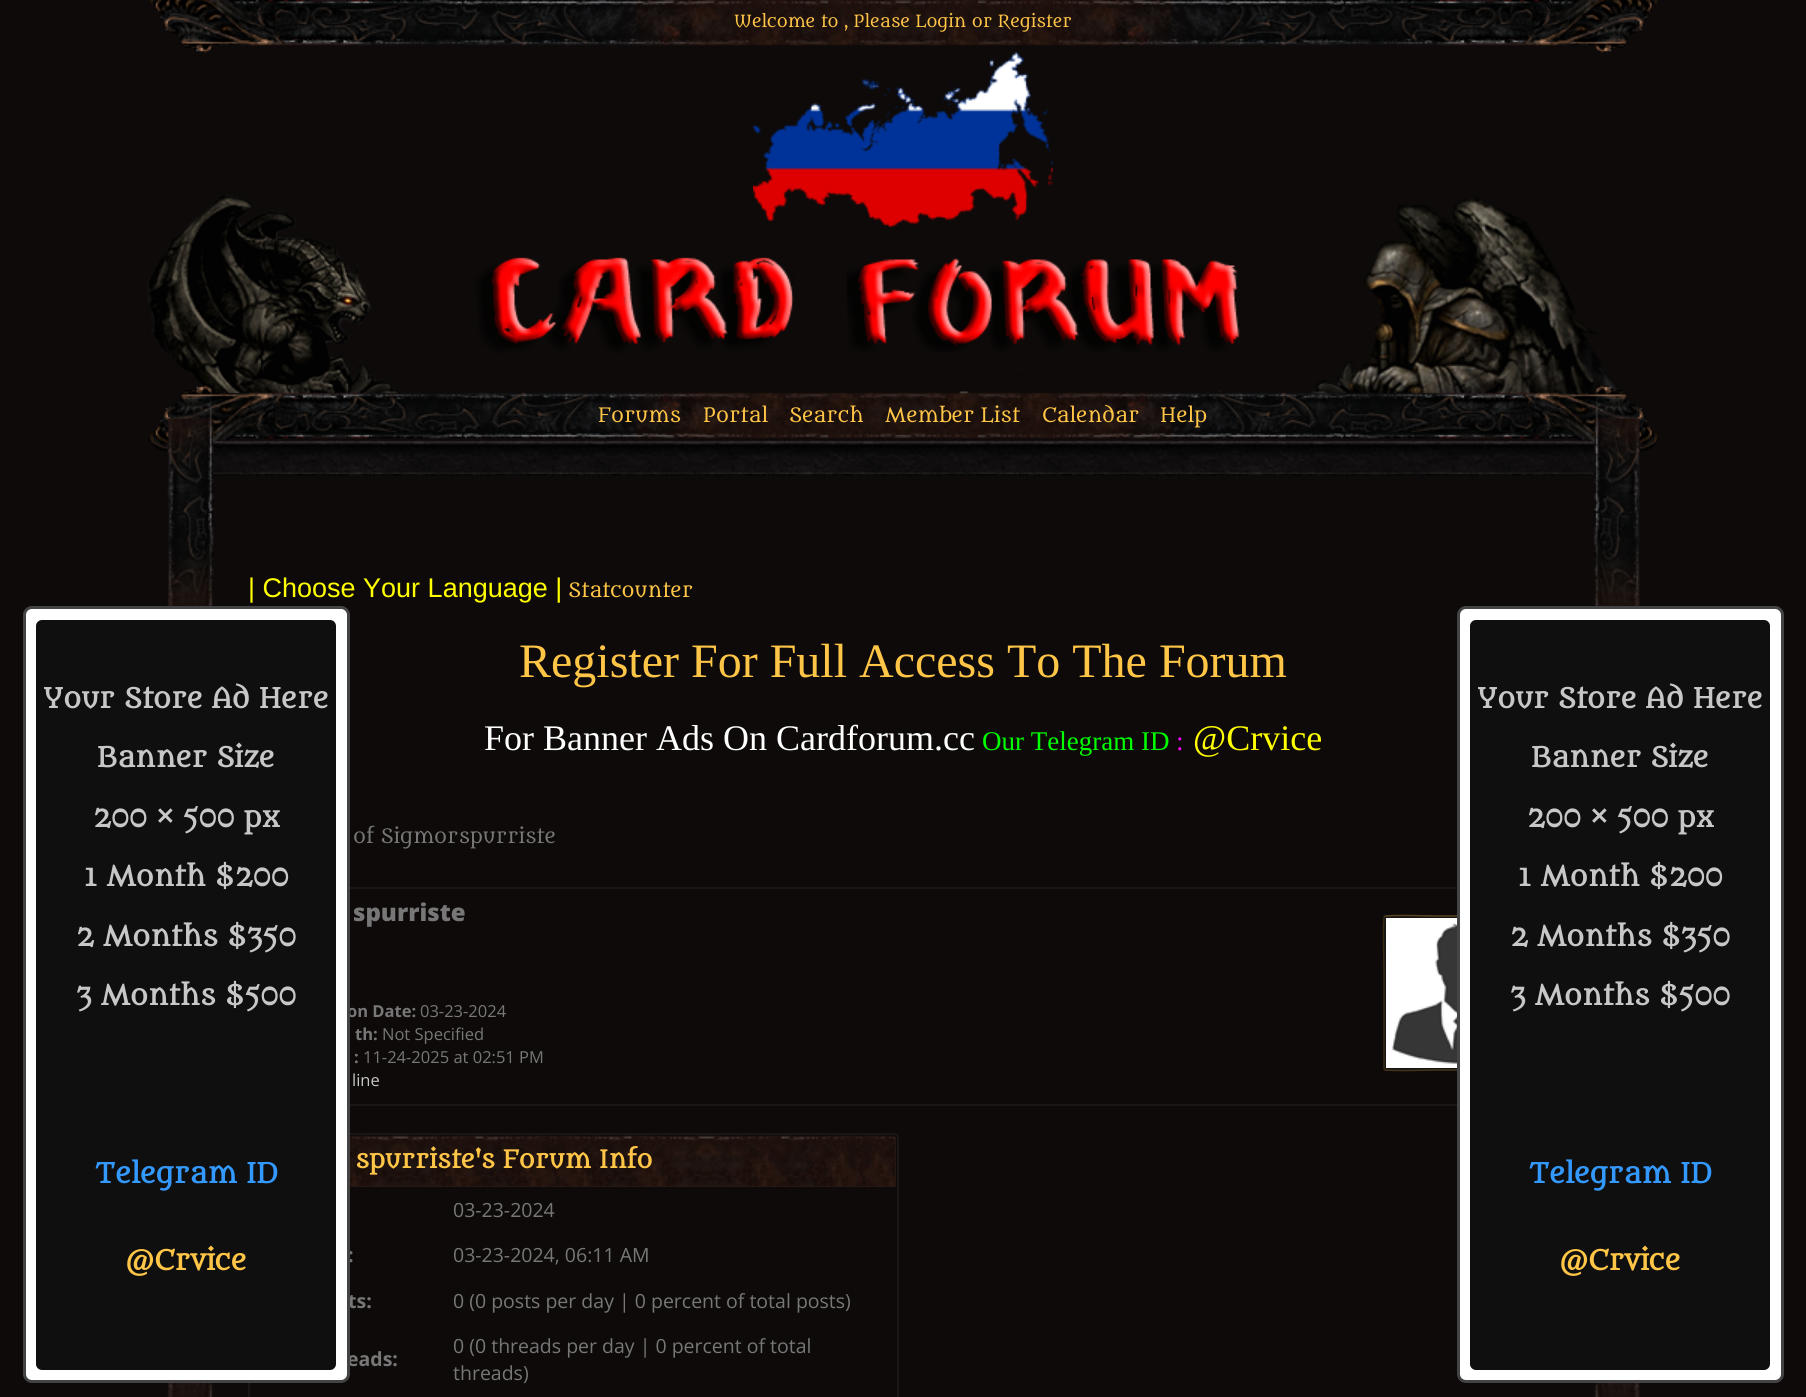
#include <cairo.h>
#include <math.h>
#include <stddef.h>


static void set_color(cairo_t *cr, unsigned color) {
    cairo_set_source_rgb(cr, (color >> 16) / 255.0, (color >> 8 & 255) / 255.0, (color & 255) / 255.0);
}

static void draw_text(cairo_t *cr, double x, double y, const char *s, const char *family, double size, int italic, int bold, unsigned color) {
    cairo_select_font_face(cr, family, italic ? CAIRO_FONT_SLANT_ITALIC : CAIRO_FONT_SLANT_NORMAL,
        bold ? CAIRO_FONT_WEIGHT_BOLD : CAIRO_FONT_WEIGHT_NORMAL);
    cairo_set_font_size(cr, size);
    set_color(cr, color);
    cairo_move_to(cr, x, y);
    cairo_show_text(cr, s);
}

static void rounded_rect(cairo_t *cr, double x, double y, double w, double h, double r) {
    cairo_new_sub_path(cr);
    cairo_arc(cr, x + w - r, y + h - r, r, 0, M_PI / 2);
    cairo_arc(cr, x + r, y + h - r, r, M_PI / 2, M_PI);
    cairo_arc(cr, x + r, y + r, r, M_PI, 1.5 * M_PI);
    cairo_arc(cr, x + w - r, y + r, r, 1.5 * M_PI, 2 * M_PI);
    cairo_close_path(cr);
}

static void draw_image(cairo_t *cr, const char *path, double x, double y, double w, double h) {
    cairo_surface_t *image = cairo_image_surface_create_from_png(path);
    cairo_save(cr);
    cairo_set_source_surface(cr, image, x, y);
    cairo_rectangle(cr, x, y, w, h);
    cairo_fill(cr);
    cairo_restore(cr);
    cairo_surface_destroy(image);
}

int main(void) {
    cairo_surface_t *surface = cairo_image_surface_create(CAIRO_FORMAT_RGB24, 1806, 1397);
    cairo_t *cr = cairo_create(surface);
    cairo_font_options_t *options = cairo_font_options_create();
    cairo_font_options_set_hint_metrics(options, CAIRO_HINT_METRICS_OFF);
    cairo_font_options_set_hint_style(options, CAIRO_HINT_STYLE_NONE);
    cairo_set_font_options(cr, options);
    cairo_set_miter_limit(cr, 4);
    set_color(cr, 0x0D0A09);
    cairo_paint(cr);
    draw_image(cr, "assets/img1.png", 150, 0, 1508, 53);
    draw_text(cr, 734, 27, "Welcome to , Please Login or Register", "Metamorphous", 16.5, 0, 0, 0xFFC547);
    draw_image(cr, "assets/img4.png", 147, 195, 1512, 259);
    draw_image(cr, "assets/img2.png", 753, 52, 300, 175);
    draw_image(cr, "assets/img3.png", 167, 387, 1473, 102);
    draw_text(cr, 598, 422, "Forums", "Metamorphous", 19.5, 0, 0, 0xFFC547);
    draw_text(cr, 703, 422, "Portal", "Metamorphous", 19.5, 0, 0, 0xFFC547);
    draw_text(cr, 789, 422, "Search", "Metamorphous", 19.5, 0, 0, 0xFFC547);
    draw_text(cr, 885, 422, "Member List", "Metamorphous", 19.5, 0, 0, 0xFFC547);
    draw_text(cr, 1042, 422, "Calendar", "Metamorphous", 19.5, 0, 0, 0xFFC547);
    draw_text(cr, 1160, 422, "Help", "Metamorphous", 19.5, 0, 0, 0xFFC547);
    draw_image(cr, "assets/img5.png", 167, 489, 1473, 908);
    draw_text(cr, 248, 597, "| Choose Your Language |", "Liberation Sans", 27, 0, 0, 0xFFFF00);
    draw_text(cr, 568, 597, "Statcounter", "Metamorphous", 19.5, 0, 0, 0xFFC547);
    draw_text(cr, 519, 677, "Register For Full Access To The Forum", "Liberation Serif", 48, 0, 0, 0xFFC547);
    cairo_rectangle(cr, 252, 888, 1303, 217);
    set_color(cr, 0x191715);
    cairo_stroke(cr);
    draw_text(cr, 347, 1017, "on Date:", "Open Sans", 16.5, 0, 1, 0x777777);
    rounded_rect(cr, 249, 1134, 649, 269, 4);
    set_color(cr, 0x191715);
    cairo_stroke(cr);
    set_color(cr, 0x281813);
    cairo_new_path(cr);
    cairo_move_to(cr, 254, 1136);
    cairo_line_to(cr, 893, 1136);
    cairo_curve_to(cr, 894.5, 1136, 896, 1137.5, 896, 1139);
    cairo_line_to(cr, 896, 1187);
    cairo_line_to(cr, 251, 1187);
    cairo_line_to(cr, 251, 1139);
    cairo_curve_to(cr, 251, 1137.5, 252.5, 1136, 254, 1136);
    cairo_close_path(cr);
    cairo_fill(cr);
    draw_text(cr, 348, 1262, ":", "Open Sans", 19.5, 0, 1, 0x777777);
    draw_text(cr, 348, 1308, "ts:", "Open Sans", 19.5, 0, 1, 0x777777);
    draw_text(cr, 347, 1366, "eads:", "Open Sans", 19.5, 0, 1, 0x777777);
    set_color(cr, 0xFFFFFF);
    rounded_rect(cr, 24.5, 607.5, 324, 774, 7.5);
    cairo_fill_preserve(cr);
    set_color(cr, 0x444444);
    cairo_set_line_width(cr, 3);
    cairo_stroke(cr);
    set_color(cr, 0x0F0F0F);
    rounded_rect(cr, 36, 620, 300, 750, 6);
    cairo_fill(cr);
    draw_text(cr, 43, 708, "Your Store Ad Here", "Metamorphous", 27, 0, 1, 0xC7C7C7);
    draw_text(cr, 97, 767, "Banner Size", "Metamorphous", 27, 0, 1, 0xC7C7C7);
    draw_text(cr, 93, 827, "200 × 500 px", "Metamorphous", 27, 0, 1, 0xC7C7C7);
    draw_text(cr, 84, 886, "1 Month $200", "Metamorphous", 27, 0, 1, 0xC7C7C7);
    draw_text(cr, 76, 946, "2 Months $350", "Metamorphous", 27, 0, 1, 0xC7C7C7);
    draw_text(cr, 76, 1005, "3 Months $500", "Metamorphous", 27, 0, 1, 0xC7C7C7);
    draw_text(cr, 95, 1183, "Telegram ID", "Metamorphous", 27, 0, 1, 0x3399FF);
    draw_text(cr, 125, 1270, "@Crvice", "Metamorphous", 27, 0, 1, 0xFFC547);
    draw_text(cr, 484, 750, "For Banner Ads On Cardforum.cc", "Liberation Serif", 36, 0, 0, 0xFFFFFF);
    draw_text(cr, 982, 750, "Our Telegram ID", "Liberation Serif", 27, 0, 0, 0x00FF00);
    draw_text(cr, 1176, 750, ":", "Liberation Serif", 27, 0, 0, 0xFF00FF);
    draw_text(cr, 1193, 750, "@Crvice", "Liberation Serif", 36, 0, 0, 0xFFFF00);
    set_color(cr, 0x141414);
    rounded_rect(cr, 1383, 915, 156, 156, 3);
    cairo_fill(cr);
    cairo_new_path(cr);
    cairo_move_to(cr, 1384.5, 916.5);
    cairo_curve_to(cr, 1386, 914.5, 1432.5, 916, 1436, 916);
    cairo_line_to(cr, 1536, 916);
    cairo_line_to(cr, 1537.5, 916.5);
    set_color(cr, 0x574320);
    cairo_set_line_width(cr, 1.5);
    cairo_stroke(cr);
    cairo_new_path(cr);
    cairo_move_to(cr, 1537.5, 1069.5);
    cairo_line_to(cr, 1536, 1070);
    cairo_line_to(cr, 1436, 1070);
    cairo_curve_to(cr, 1432.5, 1070, 1386, 1071.5, 1384.5, 1069.5);
    set_color(cr, 0x463419);
    cairo_stroke(cr);
    set_color(cr, 0xFFFFFF);
    rounded_rect(cr, 1458.5, 607.5, 324, 774, 7.5);
    cairo_fill_preserve(cr);
    set_color(cr, 0x444444);
    cairo_set_line_width(cr, 3);
    cairo_stroke(cr);
    set_color(cr, 0x0F0F0F);
    rounded_rect(cr, 1470, 620, 300, 750, 6);
    cairo_fill(cr);
    draw_text(cr, 1477, 708, "Your Store Ad Here", "Metamorphous", 27, 0, 1, 0xC7C7C7);
    draw_text(cr, 1531, 767, "Banner Size", "Metamorphous", 27, 0, 1, 0xC7C7C7);
    draw_text(cr, 1527, 827, "200 × 500 px", "Metamorphous", 27, 0, 1, 0xC7C7C7);
    draw_text(cr, 1518, 886, "1 Month $200", "Metamorphous", 27, 0, 1, 0xC7C7C7);
    draw_text(cr, 1510, 946, "2 Months $350", "Metamorphous", 27, 0, 1, 0xC7C7C7);
    draw_text(cr, 1510, 1005, "3 Months $500", "Metamorphous", 27, 0, 1, 0xC7C7C7);
    draw_text(cr, 1529, 1183, "Telegram ID", "Metamorphous", 27, 0, 1, 0x3399FF);
    draw_text(cr, 1559, 1270, "@Crvice", "Metamorphous", 27, 0, 1, 0xFFC547);
    draw_text(cr, 353, 843, "of Sigmorspurriste", "Metamorphous", 19.5, 0, 0, 0x777777);
    draw_text(cr, 353, 921, "spurriste", "Open Sans ExtraBold", 24, 0, 0, 0x777777);
    draw_text(cr, 420, 1017, "03-23-2024", "Open Sans", 16.5, 0, 0, 0x777777);
    draw_text(cr, 355, 1040, "th:", "Open Sans", 16.5, 0, 1, 0x777777);
    draw_text(cr, 382, 1040, "Not Specified", "Open Sans", 16.5, 0, 0, 0x777777);
    draw_text(cr, 354, 1063, ":", "Open Sans", 16.5, 0, 1, 0x777777);
    draw_text(cr, 363, 1063, "11-24-2025 at 02:51 PM", "Open Sans", 16.5, 0, 0, 0x777777);
    draw_text(cr, 352, 1086, "line", "Open Sans", 16.5, 0, 0, 0xC7C7C7);
    cairo_new_path(cr);
    cairo_move_to(cr, 1384.5, 1069.5);
    cairo_line_to(cr, 1384, 1068);
    cairo_line_to(cr, 1384, 968);
    cairo_curve_to(cr, 1384, 964.5, 1382.5, 918, 1384.5, 916.5);
    set_color(cr, 0x3A2912);
    cairo_set_line_width(cr, 1.5);
    cairo_stroke(cr);
    draw_image(cr, "assets/img6.png", 1386, 918, 71, 150);
    draw_image(cr, "assets/img7.png", 350, 1135, 546, 52);
    draw_text(cr, 355, 1168, "spurriste's Forum Info", "Metamorphous", 24, 0, 1, 0xFFC547);
    draw_text(cr, 453, 1217, "03-23-2024", "Open Sans", 19.5, 0, 0, 0x777777);
    draw_text(cr, 453, 1262, "03-23-2024, 06:11 AM", "Open Sans", 19.5, 0, 0, 0x777777);
    draw_text(cr, 453, 1308, "0 (0 posts per day | 0 percent of total posts)", "Open Sans", 19.5, 0, 0, 0x777777);
    draw_text(cr, 453, 1353, "0 (0 threads per day | 0 percent of total", "Open Sans", 19.5, 0, 0, 0x777777);
    draw_text(cr, 453, 1380, "threads)", "Open Sans", 19.5, 0, 0, 0x777777);
    cairo_surface_write_to_png(surface, "output.png");
    cairo_font_options_destroy(options);
    cairo_destroy(cr);
    cairo_surface_destroy(surface);
    return 0;
}
